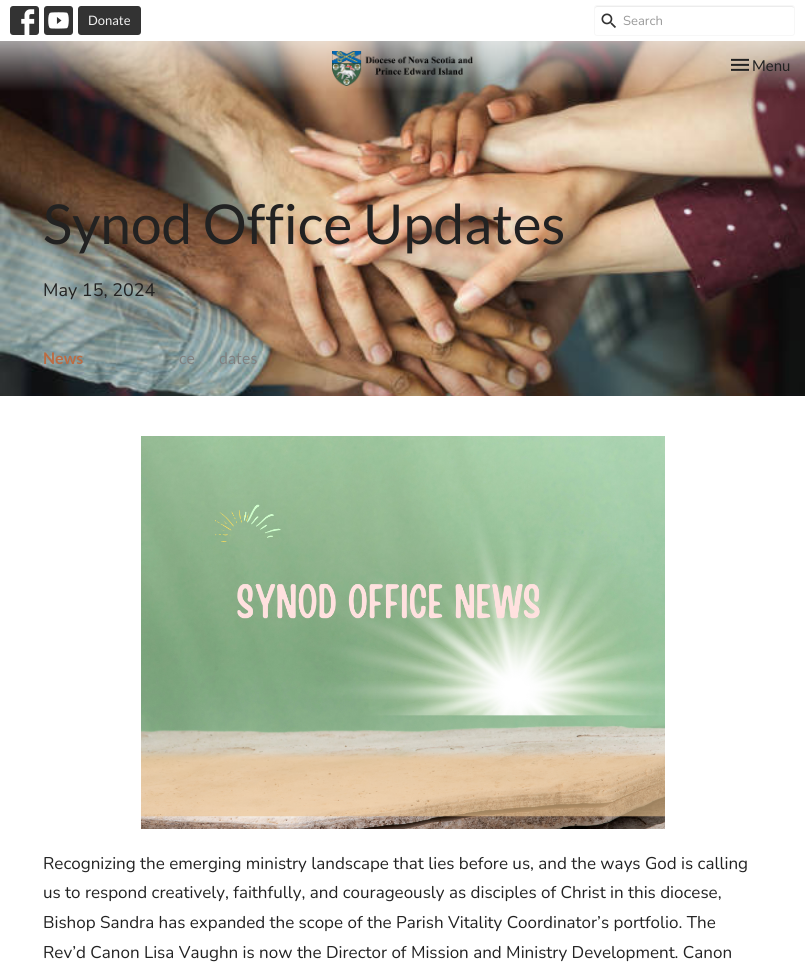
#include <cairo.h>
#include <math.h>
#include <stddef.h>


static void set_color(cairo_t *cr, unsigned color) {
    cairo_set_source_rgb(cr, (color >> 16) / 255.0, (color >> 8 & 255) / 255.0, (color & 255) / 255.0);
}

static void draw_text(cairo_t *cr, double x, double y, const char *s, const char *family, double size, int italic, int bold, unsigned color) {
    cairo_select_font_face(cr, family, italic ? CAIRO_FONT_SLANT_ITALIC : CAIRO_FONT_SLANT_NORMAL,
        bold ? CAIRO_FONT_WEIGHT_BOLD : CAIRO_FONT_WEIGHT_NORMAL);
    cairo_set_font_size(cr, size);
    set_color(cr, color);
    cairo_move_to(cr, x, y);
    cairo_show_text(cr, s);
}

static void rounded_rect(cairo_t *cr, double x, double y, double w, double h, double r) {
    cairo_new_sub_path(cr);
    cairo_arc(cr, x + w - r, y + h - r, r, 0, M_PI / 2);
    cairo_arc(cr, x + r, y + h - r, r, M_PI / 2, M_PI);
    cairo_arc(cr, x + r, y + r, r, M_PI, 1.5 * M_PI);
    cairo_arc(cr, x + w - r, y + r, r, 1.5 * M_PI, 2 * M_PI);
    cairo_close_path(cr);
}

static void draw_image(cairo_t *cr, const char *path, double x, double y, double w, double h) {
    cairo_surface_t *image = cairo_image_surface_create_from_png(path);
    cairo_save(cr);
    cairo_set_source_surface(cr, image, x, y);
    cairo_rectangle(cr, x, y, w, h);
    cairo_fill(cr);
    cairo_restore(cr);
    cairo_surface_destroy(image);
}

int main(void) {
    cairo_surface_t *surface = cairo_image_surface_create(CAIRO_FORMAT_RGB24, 805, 974);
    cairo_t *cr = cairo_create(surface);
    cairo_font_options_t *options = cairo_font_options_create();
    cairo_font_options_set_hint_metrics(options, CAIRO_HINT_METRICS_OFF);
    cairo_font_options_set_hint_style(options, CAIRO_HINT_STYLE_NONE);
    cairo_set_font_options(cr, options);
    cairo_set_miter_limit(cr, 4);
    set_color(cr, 0xFFFFFF);
    cairo_paint(cr);
    draw_image(cr, "assets/img1.png", 10, 6, 29, 29);
    draw_image(cr, "assets/img2.png", 44, 6, 29, 29);
    set_color(cr, 0x333333);
    rounded_rect(cr, 78, 6, 63, 29, 3);
    cairo_fill(cr);
    draw_text(cr, 88, 25, "Donate", "Lato", 13, 0, 0, 0xF1F1F1);
    set_color(cr, 0xECECEC);
    cairo_new_path(cr);
    cairo_move_to(cr, 597, 7);
    cairo_line_to(cr, 792, 7);
    cairo_line_to(cr, 794, 8);
    cairo_line_to(cr, 794, 9);
    cairo_curve_to(cr, 794, 8, 794, 6, 792, 6);
    cairo_line_to(cr, 597, 6);
    cairo_curve_to(cr, 595, 6, 595, 8, 595, 9);
    cairo_curve_to(cr, 595, 8, 596, 7, 597, 7);
    cairo_close_path(cr);
    cairo_fill(cr);
    rounded_rect(cr, 594.5, 5.5, 200, 30, 2.5);
    set_color(cr, 0xF7F7F7);
    cairo_set_line_width(cr, 1);
    cairo_stroke(cr);
    draw_image(cr, "assets/img3.png", 601, 13, 15, 15);
    draw_text(cr, 623, 25, "Search", "Nunito", 13, 0, 0, 0x999999);
    draw_image(cr, "assets/img6.png", 0, 41, 805, 355);
    draw_image(cr, "assets/img4.png", 332, 51, 141, 35);
    draw_image(cr, "assets/img5.png", 731, 58, 18, 13);
    draw_text(cr, 752, 71, "Menu", "Lato", 15, 0, 0, 0x222222);
    draw_text(cr, 43, 244, "Synod Office Updates", "Lato", 55, 0, 0, 0x222222);
    draw_text(cr, 43, 296, "May 15, 2024", "Nunito", 18, 0, 0, 0x222222);
    draw_text(cr, 43, 364, "News", "Lato", 16, 0, 1, 0xBB6C43);
    draw_text(cr, 179, 364, "ce", "Lato", 16, 0, 0, 0x808080);
    draw_text(cr, 219, 364, "dates", "Lato", 16, 0, 0, 0x808080);
    draw_image(cr, "assets/img7.png", 141, 436, 524, 393);
    draw_text(cr, 43, 869, "Recognizing the emerging ministry landscape that lies before us, and the ways God is calling", "Nunito", 17, 0, 0, 0x222222);
    draw_text(cr, 43, 898, "us to respond creatively, faithfully, and courageously as disciples of Christ in this diocese,", "Nunito", 17, 0, 0, 0x222222);
    draw_text(cr, 43, 928, "Bishop Sandra has expanded the scope of the Parish Vitality Coordinator’s portfolio. The", "Nunito", 17, 0, 0, 0x222222);
    draw_text(cr, 43, 958, "Rev’d Canon Lisa Vaughn is now the Director of Mission and Ministry Development. Canon", "Nunito", 17, 0, 0, 0x222222);
    cairo_surface_write_to_png(surface, "output.png");
    cairo_font_options_destroy(options);
    cairo_destroy(cr);
    cairo_surface_destroy(surface);
    return 0;
}
